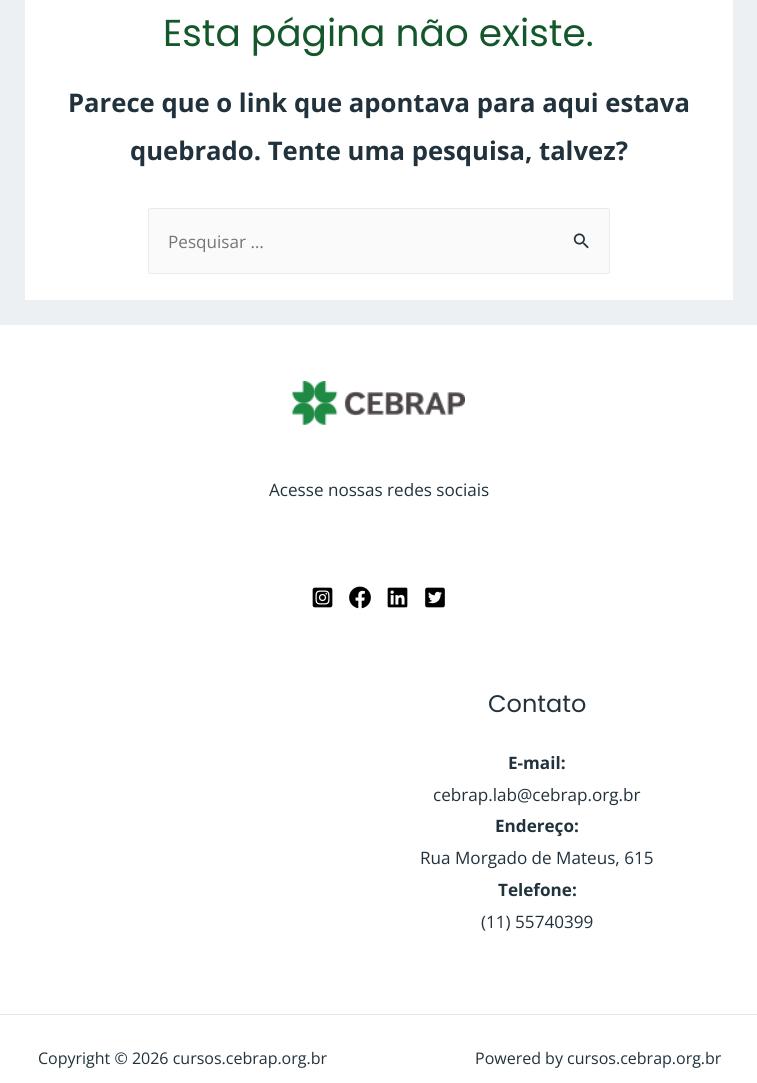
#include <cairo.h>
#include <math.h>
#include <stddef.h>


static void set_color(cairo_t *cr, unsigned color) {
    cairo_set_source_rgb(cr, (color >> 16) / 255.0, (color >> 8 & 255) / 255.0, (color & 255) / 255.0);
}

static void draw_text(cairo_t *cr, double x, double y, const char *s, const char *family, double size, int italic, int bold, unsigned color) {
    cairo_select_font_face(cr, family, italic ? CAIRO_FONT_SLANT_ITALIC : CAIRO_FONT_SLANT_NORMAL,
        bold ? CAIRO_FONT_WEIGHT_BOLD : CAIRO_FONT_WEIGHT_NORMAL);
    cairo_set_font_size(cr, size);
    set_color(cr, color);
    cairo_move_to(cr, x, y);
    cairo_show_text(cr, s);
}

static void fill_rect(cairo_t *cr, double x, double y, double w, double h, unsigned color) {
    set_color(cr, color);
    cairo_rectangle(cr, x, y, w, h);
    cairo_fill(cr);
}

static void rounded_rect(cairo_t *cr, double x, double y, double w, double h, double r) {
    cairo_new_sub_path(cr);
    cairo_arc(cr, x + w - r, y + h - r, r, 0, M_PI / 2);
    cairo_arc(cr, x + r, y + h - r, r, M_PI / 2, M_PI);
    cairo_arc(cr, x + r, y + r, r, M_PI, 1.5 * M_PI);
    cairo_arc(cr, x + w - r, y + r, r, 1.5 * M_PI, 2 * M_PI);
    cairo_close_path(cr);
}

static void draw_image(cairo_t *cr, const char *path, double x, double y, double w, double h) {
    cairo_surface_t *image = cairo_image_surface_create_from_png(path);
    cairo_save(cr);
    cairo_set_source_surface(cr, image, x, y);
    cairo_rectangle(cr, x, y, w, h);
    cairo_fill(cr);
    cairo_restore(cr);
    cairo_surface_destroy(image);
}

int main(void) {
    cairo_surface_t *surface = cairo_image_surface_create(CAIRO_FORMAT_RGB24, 757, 1083);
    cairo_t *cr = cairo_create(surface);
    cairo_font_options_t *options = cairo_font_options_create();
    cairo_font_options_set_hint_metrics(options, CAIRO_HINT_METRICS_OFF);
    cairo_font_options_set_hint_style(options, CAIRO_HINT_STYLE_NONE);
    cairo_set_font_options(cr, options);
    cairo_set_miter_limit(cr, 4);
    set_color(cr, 0xECF0F2);
    cairo_paint(cr);
    fill_rect(cr, 25, 0, 708, 300, 0xFFFFFF);
    draw_text(cr, 163, 46, "Esta página não existe.", "Poppins", 37.5, 0, 0, 0x13572B);
    draw_text(cr, 68, 112, "Parece que o link que apontava para aqui estava", "Open Sans", 25.65, 0, 1, 0x22323D);
    draw_text(cr, 130, 160, "quebrado. Tente uma pesquisa, talvez?", "Open Sans", 25.65, 0, 1, 0x22323D);
    set_color(cr, 0xFAFAFA);
    rounded_rect(cr, 148.5, 208.5, 461, 65, 2);
    cairo_fill_preserve(cr);
    set_color(cr, 0xEAEAEA);
    cairo_set_line_width(cr, 1);
    cairo_stroke(cr);
    draw_text(cr, 168, 248, "Pesquisar …", "Open Sans", 17.1, 0, 0, 0x757575);
    draw_image(cr, "assets/img1.png", 573, 233, 16, 16);
    fill_rect(cr, 0, 325, 757, 758, 0xFFFFFF);
    draw_image(cr, "assets/img2.png", 292, 381, 173, 44);
    draw_text(cr, 269, 496, "Acesse nossas redes sociais", "Open Sans", 17.1, 0, 0, 0x22323D);
    draw_image(cr, "assets/img3.png", 312, 587, 21, 21);
    draw_image(cr, "assets/img4.png", 349, 586, 22, 23);
    draw_image(cr, "assets/img5.png", 387, 587, 21, 21);
    draw_image(cr, "assets/img6.png", 425, 587, 20, 21);
    draw_text(cr, 488, 712, "Contato", "Poppins", 24, 0, 0, 0x22323D);
    draw_text(cr, 508, 769, "E-mail:", "Open Sans", 17.1, 0, 1, 0x22323D);
    draw_text(cr, 433, 801, "cebrap.lab@cebrap.org.br", "Open Sans", 17.1, 0, 0, 0x22323D);
    draw_text(cr, 495, 832, "Endereço:", "Open Sans", 17.1, 0, 1, 0x22323D);
    draw_text(cr, 420, 864, "Rua Morgado de Mateus, 615", "Open Sans", 17.1, 0, 0, 0x22323D);
    draw_text(cr, 498, 896, "Telefone:", "Open Sans", 17.1, 0, 1, 0x22323D);
    draw_text(cr, 481, 928, "(11) 55740399", "Open Sans", 17.1, 0, 0, 0x22323D);
    fill_rect(cr, 0, 1014, 757, 1, 0xE7E7E7);
    draw_text(cr, 38, 1064, "Copyright © 2026 cursos.cebrap.org.br", "Open Sans", 16, 0, 0, 0x22323D);
    draw_text(cr, 475, 1064, "Powered by cursos.cebrap.org.br", "Open Sans", 16, 0, 0, 0x22323D);
    cairo_surface_write_to_png(surface, "output.png");
    cairo_font_options_destroy(options);
    cairo_destroy(cr);
    cairo_surface_destroy(surface);
    return 0;
}
